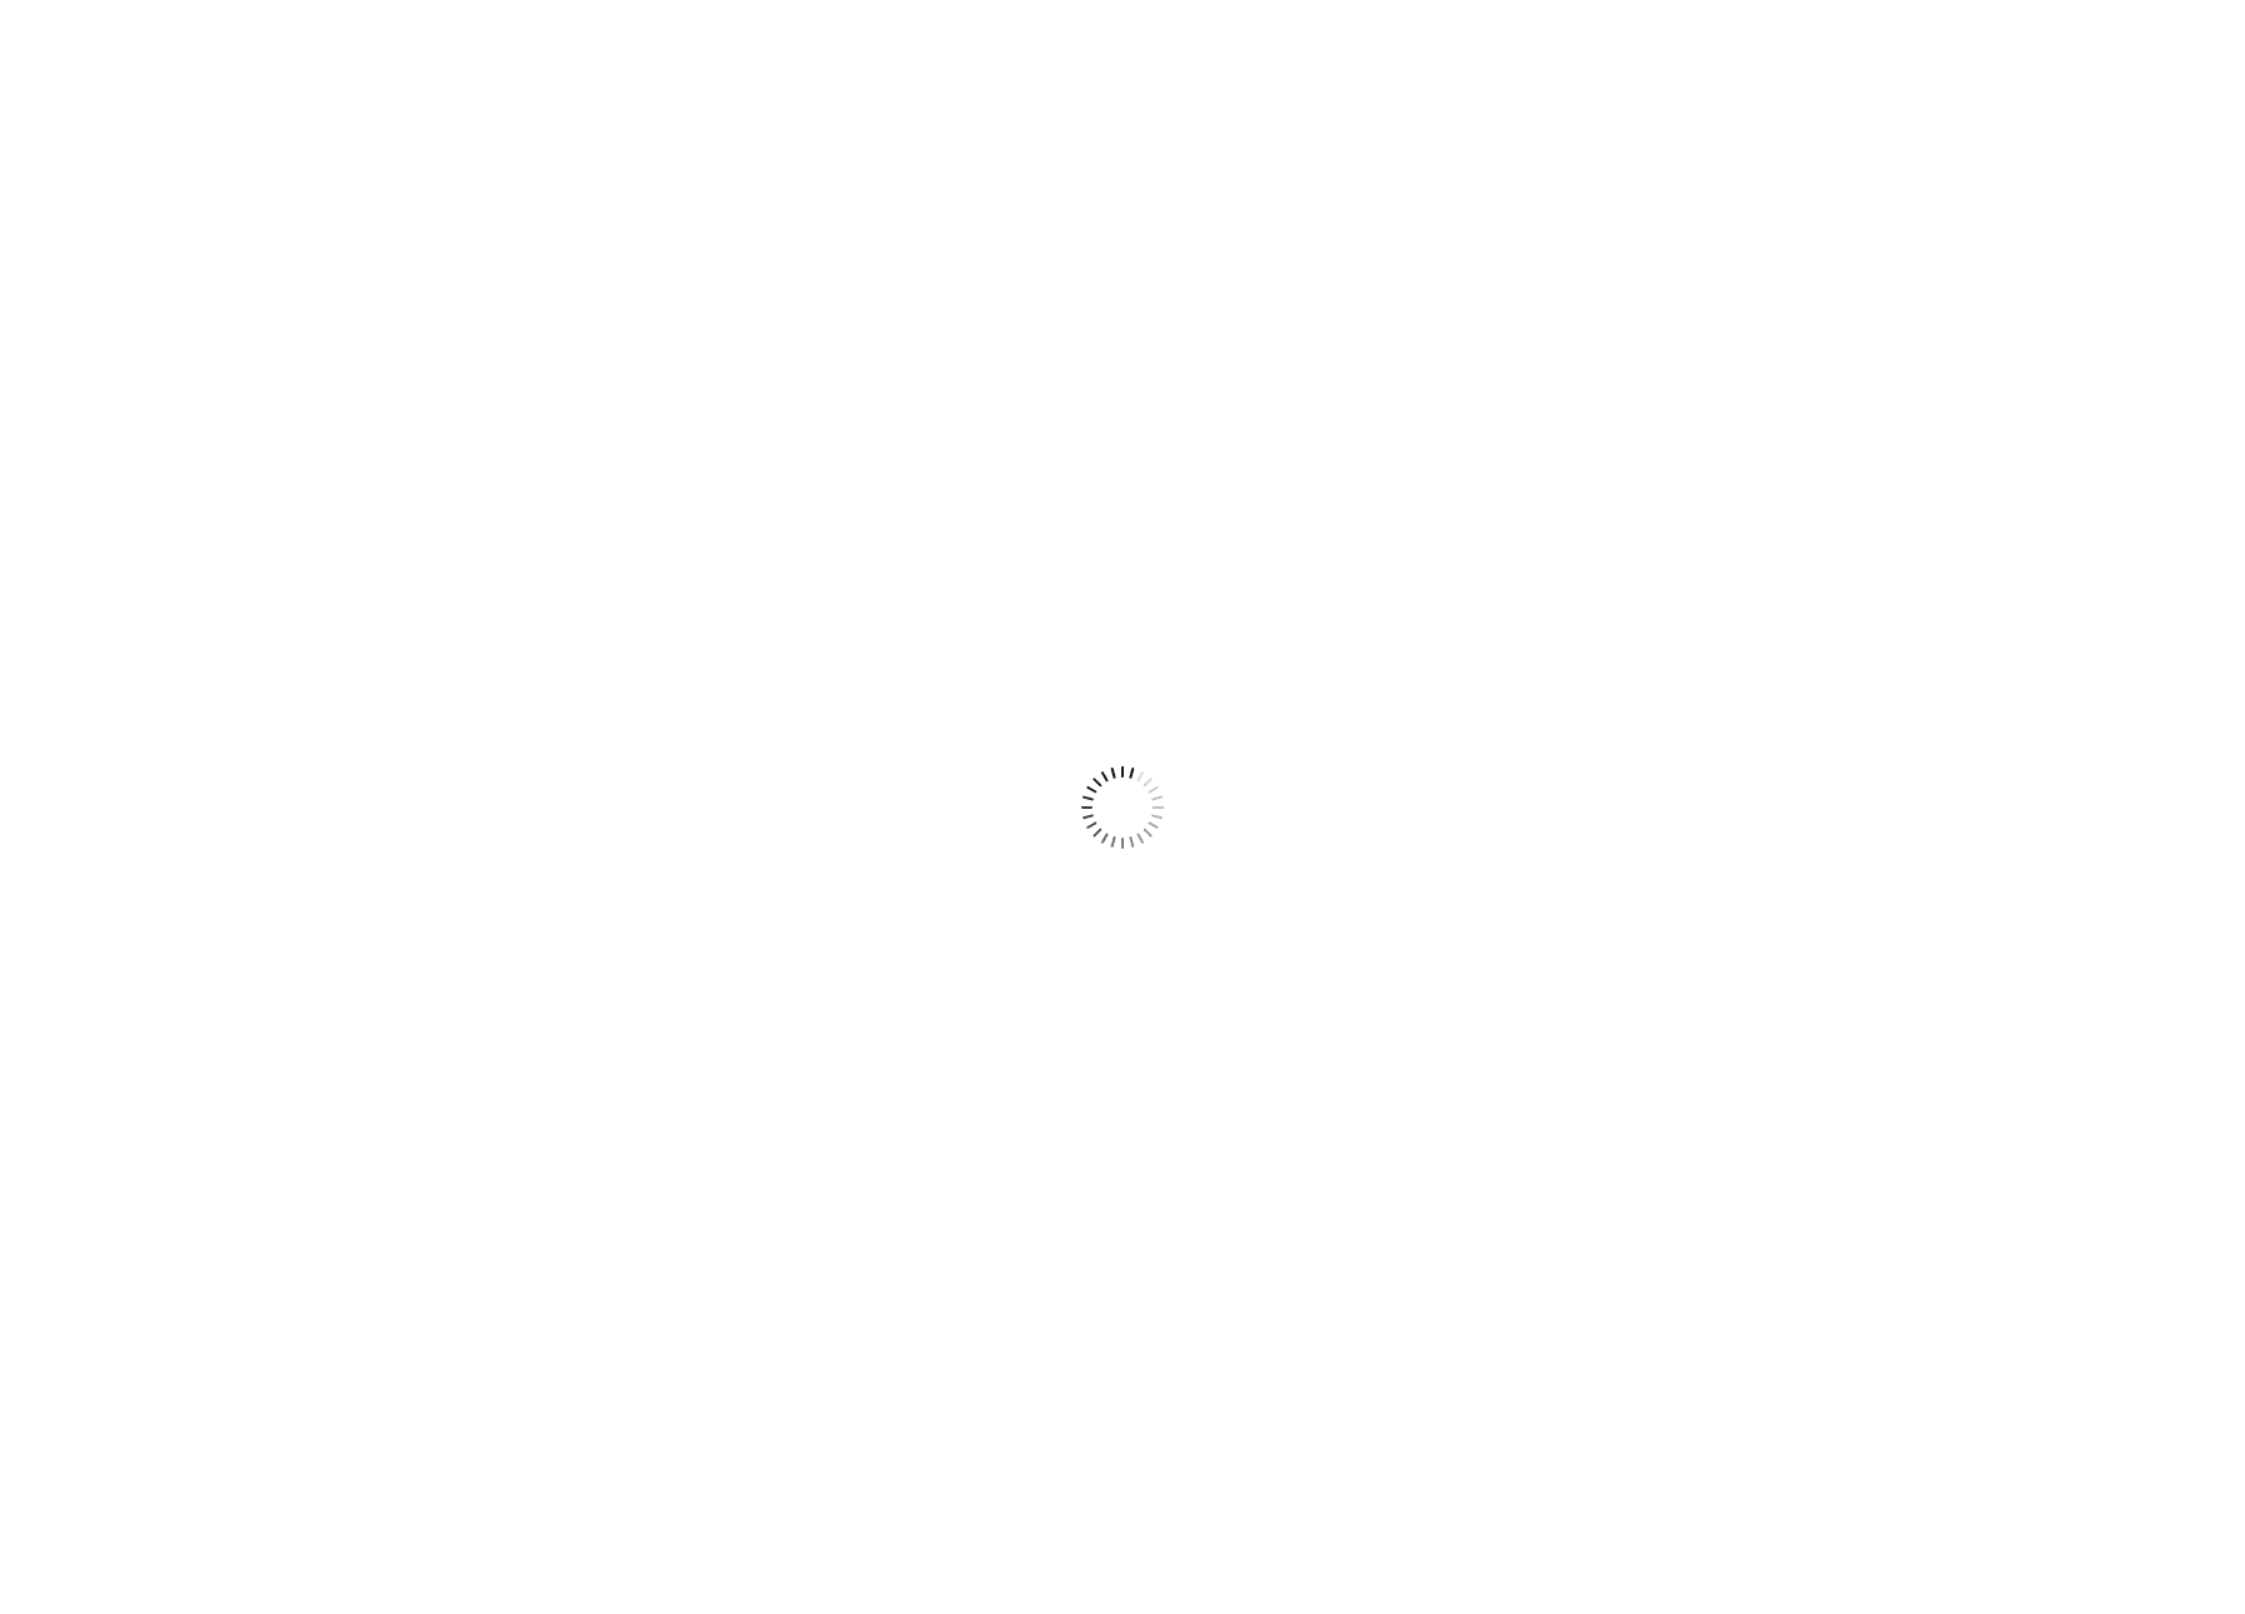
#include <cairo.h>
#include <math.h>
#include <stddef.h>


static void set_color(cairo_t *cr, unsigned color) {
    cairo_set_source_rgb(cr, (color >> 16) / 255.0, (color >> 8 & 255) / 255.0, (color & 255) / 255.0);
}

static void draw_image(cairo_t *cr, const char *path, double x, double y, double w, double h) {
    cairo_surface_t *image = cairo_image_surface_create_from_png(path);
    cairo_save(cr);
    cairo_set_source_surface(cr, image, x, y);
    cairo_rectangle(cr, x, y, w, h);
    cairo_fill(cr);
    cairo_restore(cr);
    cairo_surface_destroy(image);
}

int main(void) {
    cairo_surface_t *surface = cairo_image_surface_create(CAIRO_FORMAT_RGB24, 2245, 1614);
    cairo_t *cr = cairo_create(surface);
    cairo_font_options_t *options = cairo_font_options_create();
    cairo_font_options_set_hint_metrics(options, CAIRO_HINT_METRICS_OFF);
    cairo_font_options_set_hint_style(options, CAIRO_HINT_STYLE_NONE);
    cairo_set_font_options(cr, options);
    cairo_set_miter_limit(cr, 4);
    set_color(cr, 0xFFFFFF);
    cairo_paint(cr);
    draw_image(cr, "assets/img1.png", 1081, 766, 83, 83);
    cairo_surface_write_to_png(surface, "output.png");
    cairo_font_options_destroy(options);
    cairo_destroy(cr);
    cairo_surface_destroy(surface);
    return 0;
}
